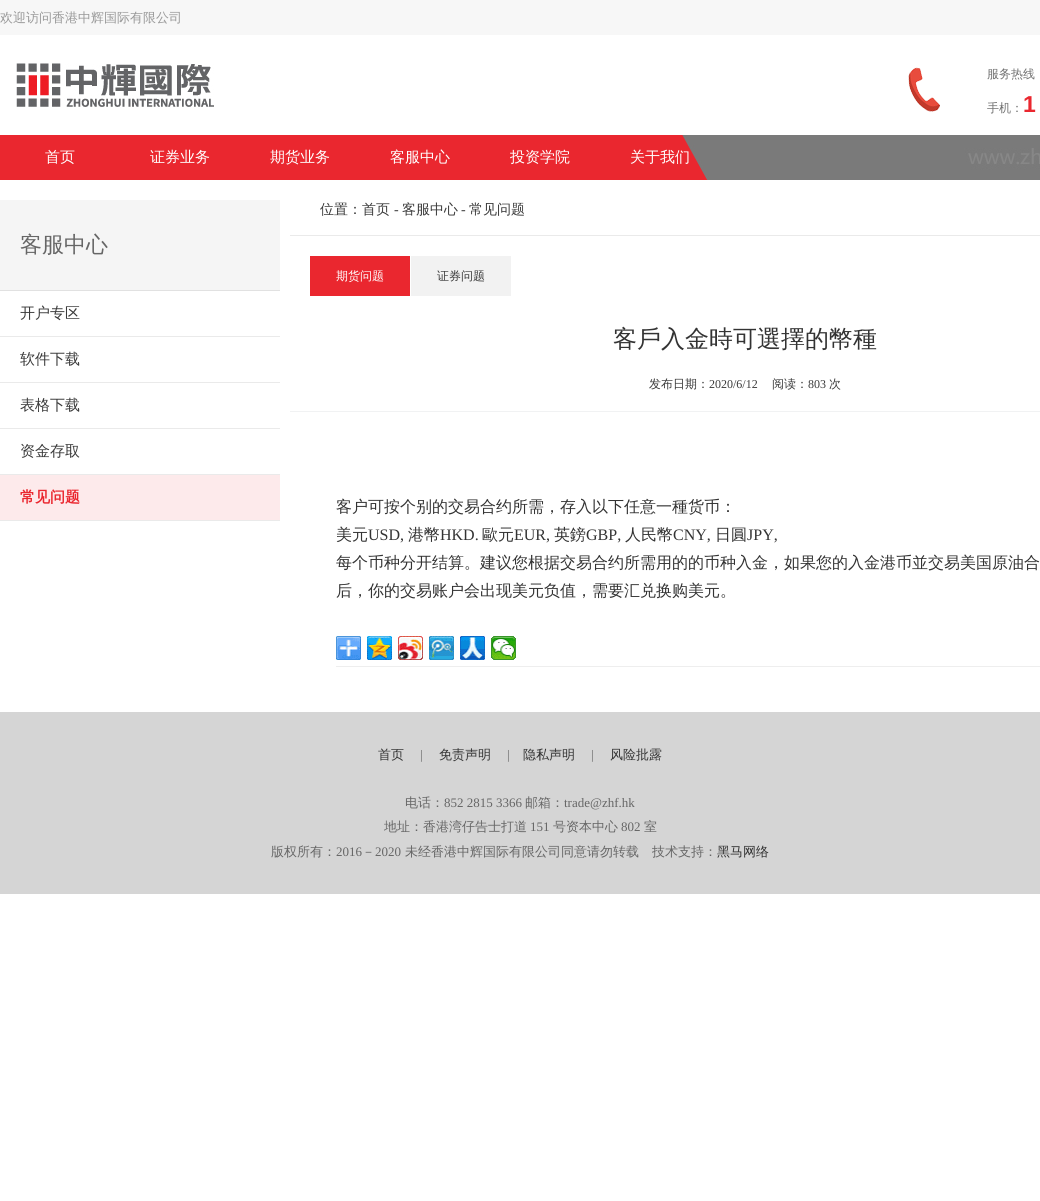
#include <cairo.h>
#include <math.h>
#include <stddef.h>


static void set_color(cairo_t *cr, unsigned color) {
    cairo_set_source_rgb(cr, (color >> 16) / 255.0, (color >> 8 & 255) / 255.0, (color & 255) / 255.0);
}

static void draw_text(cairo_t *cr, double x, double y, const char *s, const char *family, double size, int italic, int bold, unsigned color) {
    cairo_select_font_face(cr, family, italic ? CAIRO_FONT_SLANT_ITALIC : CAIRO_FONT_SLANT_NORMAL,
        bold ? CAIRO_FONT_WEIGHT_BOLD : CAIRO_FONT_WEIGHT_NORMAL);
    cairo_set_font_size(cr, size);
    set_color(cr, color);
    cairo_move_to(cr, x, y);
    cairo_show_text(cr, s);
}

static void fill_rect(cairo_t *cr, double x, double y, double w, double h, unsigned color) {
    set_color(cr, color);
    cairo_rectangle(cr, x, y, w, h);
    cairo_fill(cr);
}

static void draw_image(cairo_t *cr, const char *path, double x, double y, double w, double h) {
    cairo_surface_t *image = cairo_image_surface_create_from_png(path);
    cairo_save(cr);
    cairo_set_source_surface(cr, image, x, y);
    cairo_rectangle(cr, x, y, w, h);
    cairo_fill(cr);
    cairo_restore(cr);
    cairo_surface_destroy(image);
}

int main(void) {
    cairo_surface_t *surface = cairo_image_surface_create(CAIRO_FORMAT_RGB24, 1040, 1201);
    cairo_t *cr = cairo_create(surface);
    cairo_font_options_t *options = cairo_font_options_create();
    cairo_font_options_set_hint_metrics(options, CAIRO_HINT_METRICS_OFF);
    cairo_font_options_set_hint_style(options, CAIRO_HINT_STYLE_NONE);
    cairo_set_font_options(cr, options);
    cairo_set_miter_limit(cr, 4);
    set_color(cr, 0xFFFFFF);
    cairo_paint(cr);
    fill_rect(cr, 0, 0, 1040, 35, 0xF7F7F7);
    draw_text(cr, 0, 22, "欢迎访问香港中辉国际有限公司", "WenQuanYi Zen Hei Medium", 13, 0, 0, 0x999999);
    draw_image(cr, "assets/img1.png", 16, 63, 198, 44);
    draw_image(cr, "assets/img2.png", 908, 67, 32, 45);
    draw_text(cr, 987, 78, "服务热线", "WenQuanYi Zen Hei Medium", 12, 0, 0, 0x717171);
    draw_text(cr, 987, 112, "手机：", "WenQuanYi Zen Hei Medium", 12, 0, 0, 0x717171);
    draw_text(cr, 1023, 112, "1", "Liberation Sans", 23, 0, 1, 0xEA272F);
    fill_rect(cr, 0, 135, 708, 45, 0xEA272F);
    draw_image(cr, "assets/img3.png", 682, 135, 358, 45);
    draw_text(cr, 45, 162, "首页", "WenQuanYi Zen Hei Medium", 15, 0, 0, 0xFFFFFF);
    draw_text(cr, 150, 162, "证券业务", "WenQuanYi Zen Hei Medium", 15, 0, 0, 0xFFFFFF);
    draw_text(cr, 270, 162, "期货业务", "WenQuanYi Zen Hei Medium", 15, 0, 0, 0xFFFFFF);
    draw_text(cr, 390, 162, "客服中心", "WenQuanYi Zen Hei Medium", 15, 0, 0, 0xFFFFFF);
    draw_text(cr, 510, 162, "投资学院", "WenQuanYi Zen Hei Medium", 15, 0, 0, 0xFFFFFF);
    draw_text(cr, 630, 162, "关于我们", "WenQuanYi Zen Hei Medium", 15, 0, 0, 0xFFFFFF);
    fill_rect(cr, 0, 200, 280, 90, 0xF5F5F5);
    fill_rect(cr, 0, 290, 280, 1, 0xE1E1E1);
    draw_text(cr, 20, 252, "客服中心", "WenQuanYi Zen Hei Medium", 22, 0, 0, 0x666666);
    fill_rect(cr, 0, 336, 280, 1, 0xEAEAEA);
    draw_text(cr, 20, 318, "开户专区", "WenQuanYi Zen Hei Medium", 15, 0, 0, 0x3A3A3A);
    fill_rect(cr, 0, 382, 280, 1, 0xEAEAEA);
    draw_text(cr, 20, 364, "软件下载", "WenQuanYi Zen Hei Medium", 15, 0, 0, 0x3A3A3A);
    fill_rect(cr, 0, 428, 280, 1, 0xEAEAEA);
    draw_text(cr, 20, 410, "表格下载", "WenQuanYi Zen Hei Medium", 15, 0, 0, 0x3A3A3A);
    fill_rect(cr, 0, 474, 280, 1, 0xEAEAEA);
    draw_text(cr, 20, 456, "资金存取", "WenQuanYi Zen Hei Medium", 15, 0, 0, 0x3A3A3A);
    fill_rect(cr, 0, 520, 280, 1, 0xEAEAEA);
    fill_rect(cr, 0, 475, 280, 45, 0xFDEAEB);
    draw_text(cr, 20, 502, "常见问题", "WenQuanYi Zen Hei", 15, 0, 1, 0xEA272F);
    fill_rect(cr, 290, 235, 750, 1, 0xEAEAEA);
    draw_text(cr, 320, 214, "位置：首页", "WenQuanYi Zen Hei Medium", 14, 0, 0, 0x3A3A3A);
    draw_text(cr, 394, 214, "-", "Liberation Serif", 14, 0, 0, 0x3A3A3A);
    draw_text(cr, 402, 214, "客服中心", "WenQuanYi Zen Hei Medium", 14, 0, 0, 0x3A3A3A);
    draw_text(cr, 461, 214, "-", "Liberation Serif", 14, 0, 0, 0x3A3A3A);
    draw_text(cr, 469, 214, "常见问题", "WenQuanYi Zen Hei Medium", 14, 0, 0, 0x3A3A3A);
    fill_rect(cr, 310, 256, 100, 40, 0xEA272F);
    draw_text(cr, 336, 280, "期货问题", "WenQuanYi Zen Hei Medium", 12, 0, 0, 0xFFFFFF);
    fill_rect(cr, 411, 256, 100, 40, 0xF2F2F2);
    draw_text(cr, 437, 280, "证券问题", "WenQuanYi Zen Hei Medium", 12, 0, 0, 0x3A3A3A);
    draw_text(cr, 613, 347, "客戶入金時可選擇的幣種", "WenQuanYi Zen Hei Medium", 24, 0, 0, 0x333333);
    fill_rect(cr, 290, 411, 750, 1, 0xF1F2F3);
    draw_text(cr, 649, 388, "发布日期：", "WenQuanYi Zen Hei Medium", 12, 0, 0, 0x3A3A3A);
    draw_text(cr, 709, 388, "2020/6/12", "Liberation Serif", 12, 0, 0, 0x3A3A3A);
    draw_text(cr, 772, 388, "阅读：", "WenQuanYi Zen Hei Medium", 12, 0, 0, 0x3A3A3A);
    draw_text(cr, 808, 388, "803", "Liberation Serif", 12, 0, 0, 0x3A3A3A);
    draw_text(cr, 829, 388, "次", "WenQuanYi Zen Hei Medium", 12, 0, 0, 0x3A3A3A);
    draw_text(cr, 336, 512, "客户可按个别的交易合约所需，存入以下任意一種货币：", "WenQuanYi Zen Hei Medium", 16, 0, 0, 0x333333);
    draw_text(cr, 336, 540, "美元", "WenQuanYi Zen Hei Medium", 16, 0, 0, 0x333333);
    draw_text(cr, 368, 540, "USD,", "Liberation Serif", 16, 0, 0, 0x333333);
    draw_text(cr, 408, 540, "港幣", "WenQuanYi Zen Hei Medium", 16, 0, 0, 0x333333);
    draw_text(cr, 440, 540, "HKD.", "Liberation Serif", 16, 0, 0, 0x333333);
    draw_text(cr, 482, 540, "歐元", "WenQuanYi Zen Hei Medium", 16, 0, 0, 0x333333);
    draw_text(cr, 514, 540, "EUR,", "Liberation Serif", 16, 0, 0, 0x333333);
    draw_text(cr, 554, 540, "英鎊", "WenQuanYi Zen Hei Medium", 16, 0, 0, 0x333333);
    draw_text(cr, 586, 540, "GBP,", "Liberation Serif", 16, 0, 0, 0x333333);
    draw_text(cr, 625, 540, "人民幣", "WenQuanYi Zen Hei Medium", 16, 0, 0, 0x333333);
    draw_text(cr, 673, 540, "CNY,", "Liberation Serif", 16, 0, 0, 0x333333);
    draw_text(cr, 715, 540, "日圓", "WenQuanYi Zen Hei Medium", 16, 0, 0, 0x333333);
    draw_text(cr, 747, 540, "JPY,", "Liberation Serif", 16, 0, 0, 0x333333);
    draw_text(cr, 336, 568, "每个币种分开结算。建议您根据交易合约所需用的的币种入金，如果您的入金港币並交易美国原油合", "WenQuanYi Zen Hei Medium", 16, 0, 0, 0x333333);
    draw_text(cr, 336, 596, "后，你的交易账户会出现美元负值，需要汇兑换购美元。", "WenQuanYi Zen Hei Medium", 16, 0, 0, 0x333333);
    fill_rect(cr, 336, 666, 704, 1, 0xEEEEEE);
    draw_image(cr, "assets/img4.png", 336, 636, 25, 24);
    draw_image(cr, "assets/img5.png", 367, 636, 25, 24);
    draw_image(cr, "assets/img6.png", 398, 636, 25, 24);
    draw_image(cr, "assets/img7.png", 429, 636, 25, 24);
    draw_image(cr, "assets/img8.png", 460, 636, 25, 24);
    draw_image(cr, "assets/img9.png", 491, 636, 25, 24);
    fill_rect(cr, 0, 712, 1040, 182, 0xD5D5D5);
    draw_text(cr, 378, 759, "首页", "WenQuanYi Zen Hei Medium", 13, 0, 0, 0x333333);
    draw_text(cr, 420, 759, "|", "Liberation Serif", 13, 0, 0, 0x666666);
    draw_text(cr, 439, 759, "免责声明", "WenQuanYi Zen Hei Medium", 13, 0, 0, 0x333333);
    draw_text(cr, 507, 759, "|", "Liberation Serif", 13, 0, 0, 0x666666);
    draw_text(cr, 523, 759, "隐私声明", "WenQuanYi Zen Hei Medium", 13, 0, 0, 0x333333);
    draw_text(cr, 591, 759, "|", "Liberation Serif", 13, 0, 0, 0x666666);
    draw_text(cr, 610, 759, "风险批露", "WenQuanYi Zen Hei Medium", 13, 0, 0, 0x333333);
    draw_text(cr, 405, 807, "电话：", "WenQuanYi Zen Hei Medium", 13, 0, 0, 0x666666);
    draw_text(cr, 444, 807, "852 2815 3366", "Liberation Serif", 13, 0, 0, 0x666666);
    draw_text(cr, 525, 807, "邮箱：", "WenQuanYi Zen Hei Medium", 13, 0, 0, 0x666666);
    draw_text(cr, 564, 807, "trade@zhf.hk", "Liberation Serif", 13, 0, 0, 0x666666);
    draw_text(cr, 384, 831, "地址：香港湾仔告士打道", "WenQuanYi Zen Hei Medium", 13, 0, 0, 0x666666);
    draw_text(cr, 530, 831, "151", "Liberation Serif", 13, 0, 0, 0x666666);
    draw_text(cr, 553, 831, "号资本中心", "WenQuanYi Zen Hei Medium", 13, 0, 0, 0x666666);
    draw_text(cr, 621, 831, "802", "Liberation Serif", 13, 0, 0, 0x666666);
    draw_text(cr, 644, 831, "室", "WenQuanYi Zen Hei Medium", 13, 0, 0, 0x666666);
    draw_text(cr, 271, 856, "版权所有：", "WenQuanYi Zen Hei Medium", 13, 0, 0, 0x666666);
    draw_text(cr, 336, 856, "2016", "Liberation Serif", 13, 0, 0, 0x666666);
    draw_text(cr, 362, 856, "－", "WenQuanYi Zen Hei Medium", 13, 0, 0, 0x666666);
    draw_text(cr, 375, 856, "2020", "Liberation Serif", 13, 0, 0, 0x666666);
    draw_text(cr, 405, 856, "未经香港中辉国际有限公司同意请勿转载　技术支持：", "WenQuanYi Zen Hei Medium", 13, 0, 0, 0x666666);
    draw_text(cr, 717, 856, "黑马网络", "WenQuanYi Zen Hei Medium", 13, 0, 0, 0x333333);
    cairo_surface_write_to_png(surface, "output.png");
    cairo_font_options_destroy(options);
    cairo_destroy(cr);
    cairo_surface_destroy(surface);
    return 0;
}
